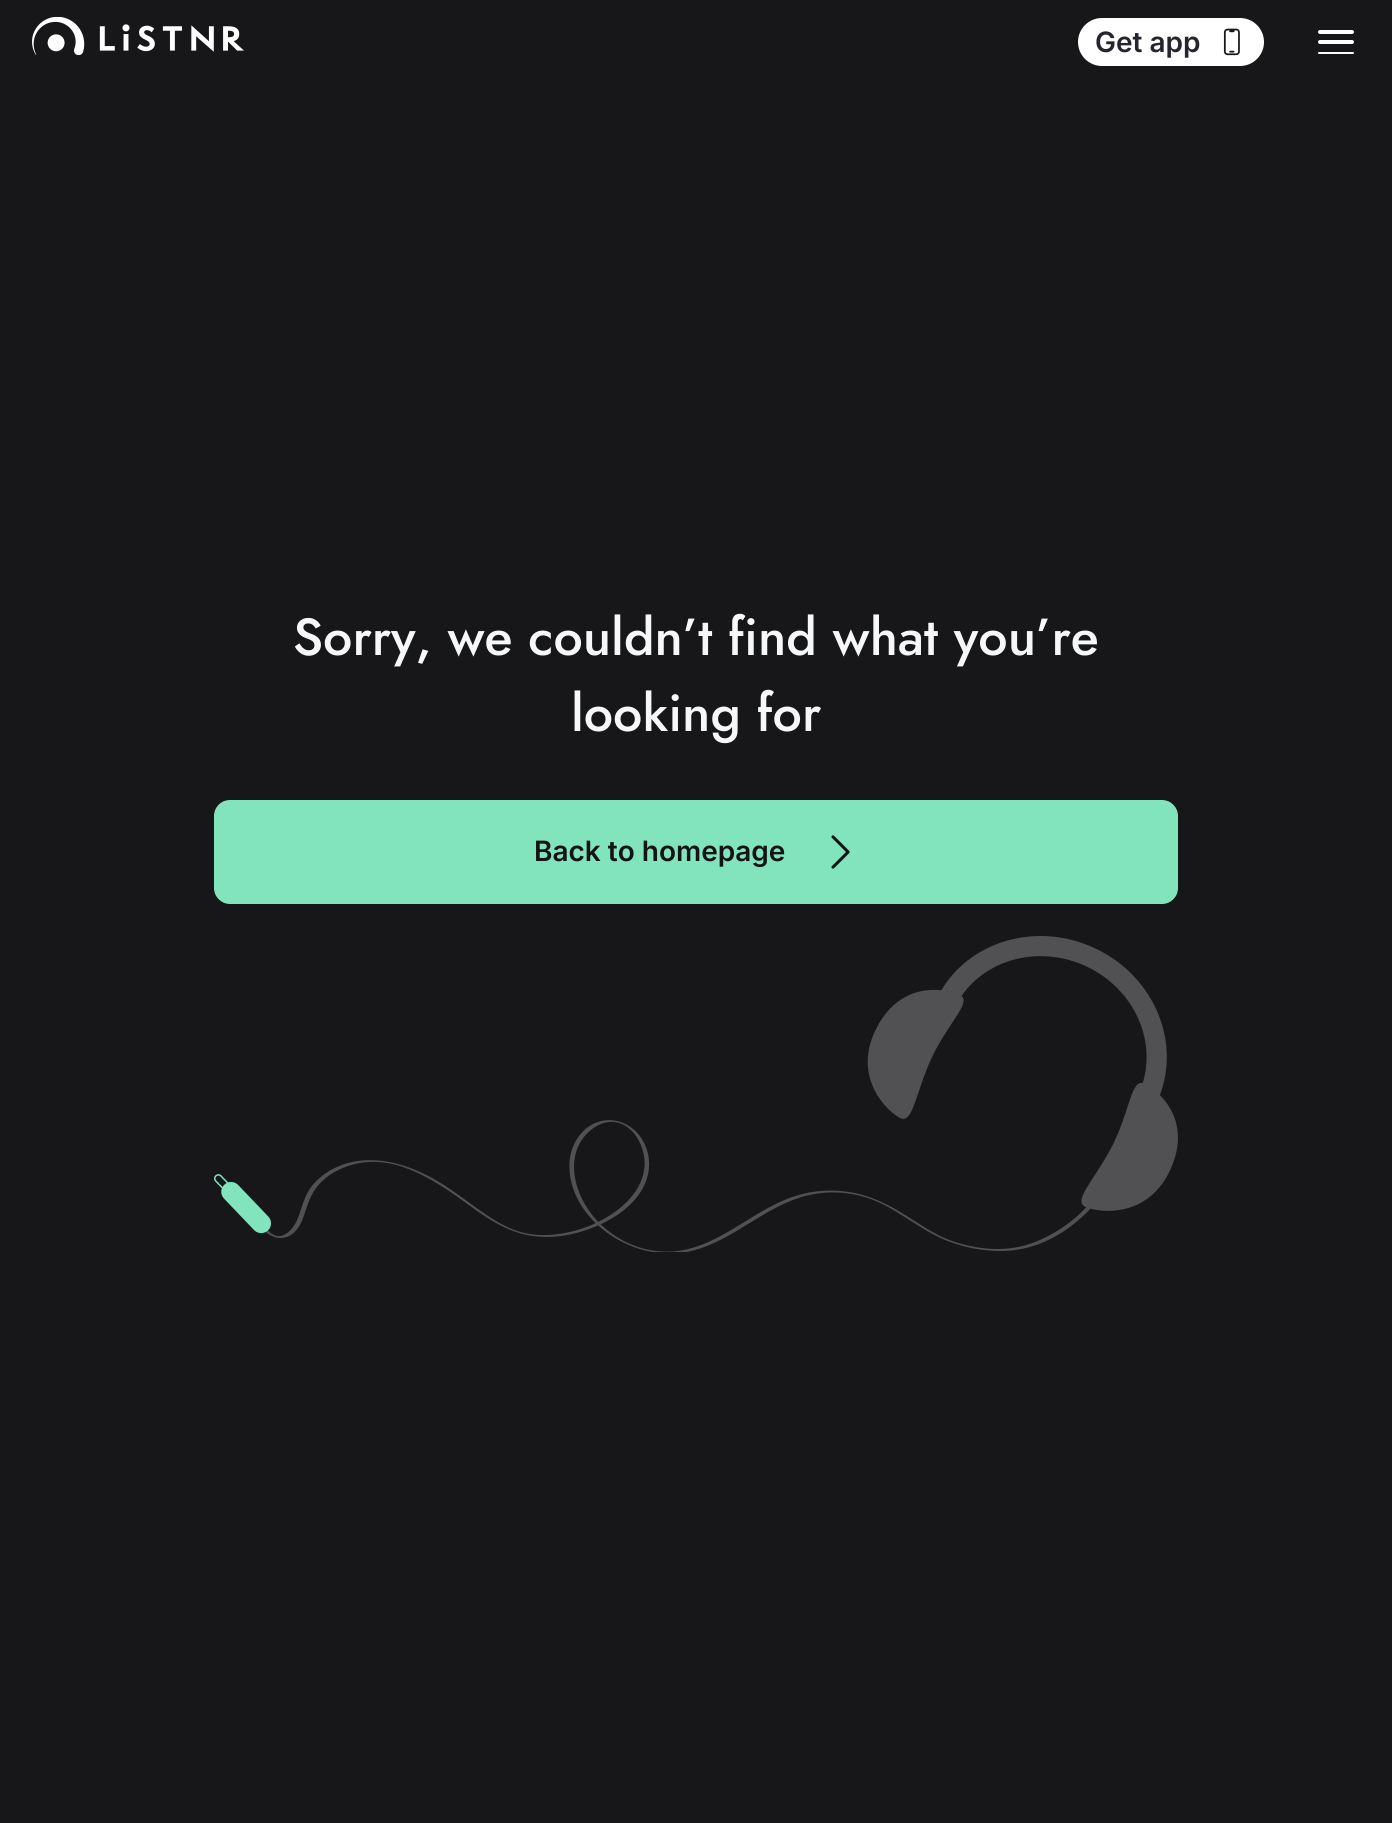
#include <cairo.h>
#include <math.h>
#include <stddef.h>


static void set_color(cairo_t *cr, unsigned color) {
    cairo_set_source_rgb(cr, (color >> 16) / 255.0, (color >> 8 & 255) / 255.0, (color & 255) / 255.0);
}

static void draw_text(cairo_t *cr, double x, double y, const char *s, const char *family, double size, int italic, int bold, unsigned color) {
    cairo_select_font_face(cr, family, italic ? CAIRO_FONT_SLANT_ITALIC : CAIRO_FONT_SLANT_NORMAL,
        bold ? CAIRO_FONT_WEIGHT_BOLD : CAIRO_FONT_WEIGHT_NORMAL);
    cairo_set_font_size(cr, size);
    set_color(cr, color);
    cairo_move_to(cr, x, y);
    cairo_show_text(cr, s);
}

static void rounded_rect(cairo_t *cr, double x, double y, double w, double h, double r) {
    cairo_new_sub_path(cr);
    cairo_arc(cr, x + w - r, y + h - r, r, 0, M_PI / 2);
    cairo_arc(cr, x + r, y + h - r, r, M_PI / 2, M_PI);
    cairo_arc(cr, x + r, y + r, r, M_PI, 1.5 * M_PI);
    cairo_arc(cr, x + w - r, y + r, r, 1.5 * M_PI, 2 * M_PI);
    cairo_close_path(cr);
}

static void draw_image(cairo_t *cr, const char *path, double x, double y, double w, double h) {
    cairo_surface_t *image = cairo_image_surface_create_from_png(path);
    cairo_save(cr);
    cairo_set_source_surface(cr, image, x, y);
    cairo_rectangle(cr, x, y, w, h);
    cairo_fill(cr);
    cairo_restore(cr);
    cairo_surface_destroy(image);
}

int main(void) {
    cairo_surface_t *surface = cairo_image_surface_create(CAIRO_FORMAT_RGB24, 1392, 1823);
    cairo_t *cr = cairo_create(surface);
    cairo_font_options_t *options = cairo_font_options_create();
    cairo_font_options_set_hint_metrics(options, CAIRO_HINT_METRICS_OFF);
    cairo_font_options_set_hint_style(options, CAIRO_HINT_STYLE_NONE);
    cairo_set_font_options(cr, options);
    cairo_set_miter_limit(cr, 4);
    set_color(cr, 0x17171A);
    cairo_paint(cr);
    draw_image(cr, "assets/img1.png", 32, 16, 212, 40);
    set_color(cr, 0xFFFFFF);
    rounded_rect(cr, 1078, 18, 186, 48, 24);
    cairo_fill(cr);
    draw_text(cr, 1095, 52, "Get app", "Inter SemiBold", 28, 0, 0, 0x24252D);
    draw_image(cr, "assets/img2.png", 1223, 28, 17, 28);
    set_color(cr, 0xFFFFFF);
    rounded_rect(cr, 1318, 30, 36, 4, 2);
    cairo_fill(cr);
    rounded_rect(cr, 1318, 40, 36, 4, 2);
    cairo_fill(cr);
    rounded_rect(cr, 1318, 52, 36, 2, 1);
    cairo_fill(cr);
    draw_text(cr, 293, 655, "Sorry, we couldn’t find what you’re", "Jost Medium", 52, 0, 0, 0xF6F7F8);
    draw_text(cr, 571, 731, "looking for", "Jost Medium", 52, 0, 0, 0xF6F7F8);
    set_color(cr, 0x81E4BD);
    rounded_rect(cr, 214, 800, 964, 104, 16);
    cairo_fill(cr);
    draw_text(cr, 534, 861, "Back to homepage", "Inter SemiBold", 28, 0, 0, 0x141416);
    draw_image(cr, "assets/img3.png", 831, 835, 19, 34);
    draw_image(cr, "assets/img4.png", 214, 936, 964, 316);
    cairo_surface_write_to_png(surface, "output.png");
    cairo_font_options_destroy(options);
    cairo_destroy(cr);
    cairo_surface_destroy(surface);
    return 0;
}
